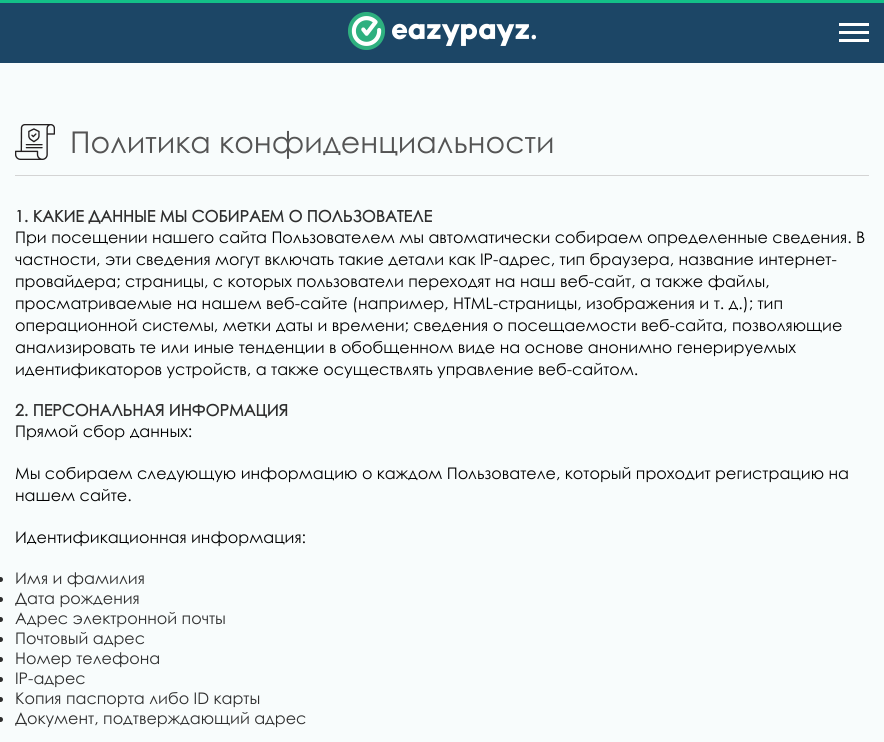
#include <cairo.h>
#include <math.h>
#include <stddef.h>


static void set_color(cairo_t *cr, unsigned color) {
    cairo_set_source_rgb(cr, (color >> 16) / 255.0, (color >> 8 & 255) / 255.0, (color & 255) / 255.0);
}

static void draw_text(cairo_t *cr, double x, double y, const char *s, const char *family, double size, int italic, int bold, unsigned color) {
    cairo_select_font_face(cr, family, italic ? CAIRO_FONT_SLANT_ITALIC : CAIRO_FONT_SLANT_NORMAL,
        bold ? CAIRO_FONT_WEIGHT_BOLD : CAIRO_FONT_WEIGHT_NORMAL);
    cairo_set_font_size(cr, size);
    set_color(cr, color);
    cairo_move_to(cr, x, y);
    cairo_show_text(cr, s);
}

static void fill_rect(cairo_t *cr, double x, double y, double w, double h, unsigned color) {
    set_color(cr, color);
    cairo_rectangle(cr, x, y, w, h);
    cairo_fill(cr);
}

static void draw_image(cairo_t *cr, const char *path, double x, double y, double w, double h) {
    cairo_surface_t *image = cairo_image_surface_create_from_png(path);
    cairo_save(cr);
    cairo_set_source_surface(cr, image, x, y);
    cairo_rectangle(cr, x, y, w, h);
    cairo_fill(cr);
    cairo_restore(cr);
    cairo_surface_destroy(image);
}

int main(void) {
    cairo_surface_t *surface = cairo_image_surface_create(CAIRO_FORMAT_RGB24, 884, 742);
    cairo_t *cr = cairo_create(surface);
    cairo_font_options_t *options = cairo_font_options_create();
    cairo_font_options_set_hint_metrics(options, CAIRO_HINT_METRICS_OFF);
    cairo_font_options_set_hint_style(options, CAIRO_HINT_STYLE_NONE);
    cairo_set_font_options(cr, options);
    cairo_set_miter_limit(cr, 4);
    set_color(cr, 0xF8FCFC);
    cairo_paint(cr);
    fill_rect(cr, 0, 3, 884, 60, 0x1C4666);
    fill_rect(cr, 0, 0, 884, 3, 0x13C088);
    draw_image(cr, "assets/img1.png", 348, 12, 188, 38);
    fill_rect(cr, 839, 23, 30, 3, 0xFFFFFF);
    fill_rect(cr, 839, 31, 30, 3, 0xFFFFFF);
    fill_rect(cr, 839, 39, 30, 3, 0xFFFFFF);
    fill_rect(cr, 15, 175, 854, 1, 0xD4D4D4);
    draw_image(cr, "assets/img2.png", 15, 124, 40, 36);
    draw_text(cr, 70, 153, "Политика конфиденциальности", "Century Gothic", 30, 0, 0, 0x545454);
    draw_text(cr, 15, 222, "1. КАКИЕ ДАННЫЕ МЫ СОБИРАЕМ О ПОЛЬЗОВАТЕЛЕ", "Century Gothic", 16, 0, 1, 0x2E2E2E);
    draw_text(cr, 15, 243, "При посещении нашего сайта Пользователем мы автоматически собираем определенные сведения. В", "Century Gothic", 16, 0, 0, 0x000000);
    draw_text(cr, 15, 265, "частности, эти сведения могут включать такие детали как IP-адрес, тип браузера, название интернет-", "Century Gothic", 16, 0, 0, 0x000000);
    draw_text(cr, 15, 287, "провайдера; страницы, с которых пользователи переходят на наш веб-сайт, а также файлы,", "Century Gothic", 16, 0, 0, 0x000000);
    draw_text(cr, 15, 309, "просматриваемые на нашем веб-сайте (например, HTML-страницы, изображения и т. д.); тип", "Century Gothic", 16, 0, 0, 0x000000);
    draw_text(cr, 15, 331, "операционной системы, метки даты и времени; сведения о посещаемости веб-сайта, позволяющие", "Century Gothic", 16, 0, 0, 0x000000);
    draw_text(cr, 15, 353, "анализировать те или иные тенденции в обобщенном виде на основе анонимно генерируемых", "Century Gothic", 16, 0, 0, 0x000000);
    draw_text(cr, 15, 375, "идентификаторов устройств, а также осуществлять управление веб-сайтом.", "Century Gothic", 16, 0, 0, 0x000000);
    draw_text(cr, 15, 416, "2. ПЕРСОНАЛЬНАЯ ИНФОРМАЦИЯ", "Century Gothic", 16, 0, 1, 0x2E2E2E);
    draw_text(cr, 15, 437, "Прямой сбор данных:", "Century Gothic", 16, 0, 0, 0x000000);
    draw_text(cr, 15, 479, "Мы собираем следующую информацию о каждом Пользователе, который проходит регистрацию на", "Century Gothic", 16, 0, 0, 0x000000);
    draw_text(cr, 15, 501, "нашем сайте.", "Century Gothic", 16, 0, 0, 0x000000);
    draw_text(cr, 15, 543, "Идентификационная информация:", "Century Gothic", 16, 0, 0, 0x000000);
    set_color(cr, 0x2E2E2E);
    cairo_new_path(cr);
    cairo_arc(cr, 0.5, 579.5, 2.5, 0, 2 * M_PI);
    cairo_fill(cr);
    draw_text(cr, 15, 584, "Имя и фамилия", "Century Gothic", 16, 0, 0, 0x2E2E2E);
    cairo_new_path(cr);
    cairo_arc(cr, 0.5, 599.5, 2.5, 0, 2 * M_PI);
    cairo_fill(cr);
    draw_text(cr, 15, 604, "Дата рождения", "Century Gothic", 16, 0, 0, 0x2E2E2E);
    cairo_new_path(cr);
    cairo_arc(cr, 0.5, 619.5, 2.5, 0, 2 * M_PI);
    cairo_fill(cr);
    draw_text(cr, 15, 624, "Адрес электронной почты", "Century Gothic", 16, 0, 0, 0x2E2E2E);
    cairo_new_path(cr);
    cairo_arc(cr, 0.5, 639.5, 2.5, 0, 2 * M_PI);
    cairo_fill(cr);
    draw_text(cr, 15, 644, "Почтовый адрес", "Century Gothic", 16, 0, 0, 0x2E2E2E);
    cairo_new_path(cr);
    cairo_arc(cr, 0.5, 659.5, 2.5, 0, 2 * M_PI);
    cairo_fill(cr);
    draw_text(cr, 15, 664, "Номер телефона", "Century Gothic", 16, 0, 0, 0x2E2E2E);
    cairo_new_path(cr);
    cairo_arc(cr, 0.5, 679.5, 2.5, 0, 2 * M_PI);
    cairo_fill(cr);
    draw_text(cr, 15, 684, "IP-адрес", "Century Gothic", 16, 0, 0, 0x2E2E2E);
    cairo_new_path(cr);
    cairo_arc(cr, 0.5, 699.5, 2.5, 0, 2 * M_PI);
    cairo_fill(cr);
    draw_text(cr, 15, 704, "Копия паспорта либо ID карты", "Century Gothic", 16, 0, 0, 0x2E2E2E);
    cairo_new_path(cr);
    cairo_arc(cr, 0.5, 719.5, 2.5, 0, 2 * M_PI);
    cairo_fill(cr);
    draw_text(cr, 15, 724, "Документ, подтверждающий адрес", "Century Gothic", 16, 0, 0, 0x2E2E2E);
    cairo_surface_write_to_png(surface, "output.png");
    cairo_font_options_destroy(options);
    cairo_destroy(cr);
    cairo_surface_destroy(surface);
    return 0;
}
